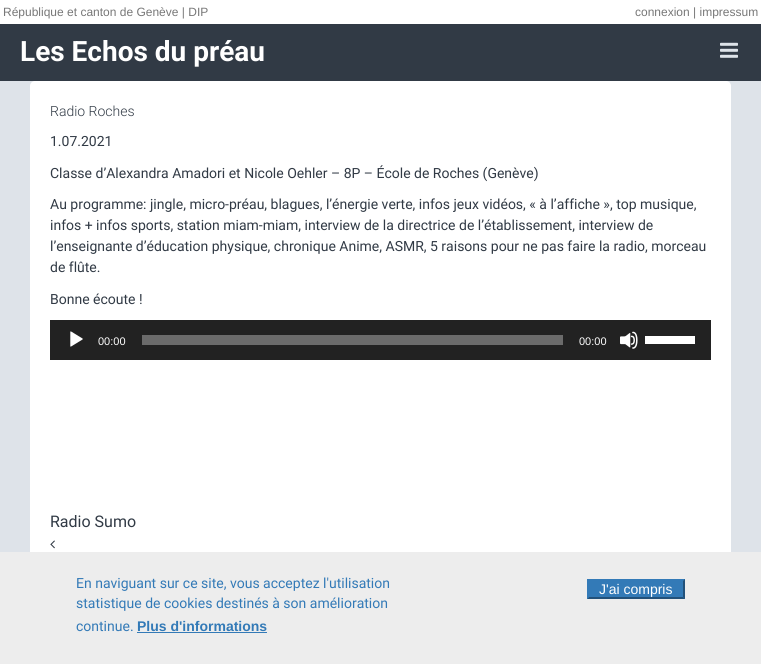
#include <cairo.h>
#include <math.h>
#include <stddef.h>


static void set_color(cairo_t *cr, unsigned color) {
    cairo_set_source_rgb(cr, (color >> 16) / 255.0, (color >> 8 & 255) / 255.0, (color & 255) / 255.0);
}

static void draw_text(cairo_t *cr, double x, double y, const char *s, const char *family, double size, int italic, int bold, unsigned color) {
    cairo_select_font_face(cr, family, italic ? CAIRO_FONT_SLANT_ITALIC : CAIRO_FONT_SLANT_NORMAL,
        bold ? CAIRO_FONT_WEIGHT_BOLD : CAIRO_FONT_WEIGHT_NORMAL);
    cairo_set_font_size(cr, size);
    set_color(cr, color);
    cairo_move_to(cr, x, y);
    cairo_show_text(cr, s);
}

static void fill_rect(cairo_t *cr, double x, double y, double w, double h, unsigned color) {
    set_color(cr, color);
    cairo_rectangle(cr, x, y, w, h);
    cairo_fill(cr);
}

static void rounded_rect(cairo_t *cr, double x, double y, double w, double h, double r) {
    cairo_new_sub_path(cr);
    cairo_arc(cr, x + w - r, y + h - r, r, 0, M_PI / 2);
    cairo_arc(cr, x + r, y + h - r, r, M_PI / 2, M_PI);
    cairo_arc(cr, x + r, y + r, r, M_PI, 1.5 * M_PI);
    cairo_arc(cr, x + w - r, y + r, r, 1.5 * M_PI, 2 * M_PI);
    cairo_close_path(cr);
}

static void draw_image(cairo_t *cr, const char *path, double x, double y, double w, double h) {
    cairo_surface_t *image = cairo_image_surface_create_from_png(path);
    cairo_save(cr);
    cairo_set_source_surface(cr, image, x, y);
    cairo_rectangle(cr, x, y, w, h);
    cairo_fill(cr);
    cairo_restore(cr);
    cairo_surface_destroy(image);
}

int main(void) {
    cairo_surface_t *surface = cairo_image_surface_create(CAIRO_FORMAT_RGB24, 761, 664);
    cairo_t *cr = cairo_create(surface);
    cairo_font_options_t *options = cairo_font_options_create();
    cairo_font_options_set_hint_metrics(options, CAIRO_HINT_METRICS_OFF);
    cairo_font_options_set_hint_style(options, CAIRO_HINT_STYLE_NONE);
    cairo_set_font_options(cr, options);
    cairo_set_miter_limit(cr, 4);
    set_color(cr, 0xDEE3E9);
    cairo_paint(cr);
    fill_rect(cr, 0, 0, 761, 24, 0xFFFFFF);
    draw_text(cr, 3, 16, "République et canton de Genève | DIP", "Liberation Sans", 12, 0, 0, 0x777777);
    draw_text(cr, 635, 16, "connexion | impressum", "Liberation Sans", 12, 0, 0, 0x777777);
    set_color(cr, 0xFFFFFF);
    rounded_rect(cr, 30, 81, 701, 515, 5);
    cairo_fill(cr);
    fill_rect(cr, 0, 552, 761, 112, 0xEDEDED);
    draw_text(cr, 76, 588, "En naviguant sur ce site, vous acceptez l'utilisation", "Roboto", 14, 0, 0, 0x337AB7);
    draw_text(cr, 76, 608, "statistique de cookies destinés à son amélioration", "Roboto", 14, 0, 0, 0x337AB7);
    draw_text(cr, 76, 631, "continue.", "Roboto", 14, 0, 0, 0x337AB7);
    draw_text(cr, 137, 631, "Plus d'informations", "Liberation Sans", 14, 0, 1, 0x337AB7);
    fill_rect(cr, 137, 632, 130, 1, 0x337AB7);
    fill_rect(cr, 587, 579, 98, 20, 0x337AB7);
    set_color(cr, 0x22517A);
    cairo_new_path(cr);
    cairo_move_to(cr, 685, 579);
    cairo_line_to(cr, 685, 599);
    cairo_line_to(cr, 683, 597);
    cairo_line_to(cr, 683, 581);
    cairo_close_path(cr);
    cairo_fill(cr);
    cairo_new_path(cr);
    cairo_move_to(cr, 685, 599);
    cairo_line_to(cr, 587, 599);
    cairo_line_to(cr, 589, 597);
    cairo_line_to(cr, 683, 597);
    cairo_close_path(cr);
    cairo_fill(cr);
    set_color(cr, 0x337AB7);
    cairo_new_path(cr);
    cairo_move_to(cr, 587, 599);
    cairo_line_to(cr, 587, 579);
    cairo_line_to(cr, 589, 581);
    cairo_line_to(cr, 589, 597);
    cairo_close_path(cr);
    cairo_fill(cr);
    draw_text(cr, 599, 594, "J'ai compris", "Liberation Sans", 14, 0, 0, 0xFFFFFF);
    fill_rect(cr, 0, 24, 761, 57, 0x313A45);
    draw_text(cr, 20, 61, "Les Echos du préau", "Roboto", 28, 0, 1, 0xFFFFFF);
    draw_image(cr, "assets/img1.png", 720, 42, 18, 16);
    draw_text(cr, 50, 116, "Radio Roches", "Roboto Light", 14, 0, 0, 0x313A45);
    draw_text(cr, 50, 146, "1.07.2021", "Roboto", 14, 0, 0, 0x313A45);
    draw_text(cr, 50, 178, "Classe d’Alexandra Amadori et Nicole Oehler – 8P – École de Roches (Genève)", "Roboto", 14, 0, 0, 0x313A45);
    draw_text(cr, 50, 209, "Au programme: jingle, micro-préau, blagues, l’énergie verte, infos jeux vidéos, « à l’affiche », top musique,", "Roboto", 14, 0, 0, 0x313A45);
    draw_text(cr, 50, 230, "infos + infos sports, station miam-miam, interview de la directrice de l’établissement, interview de", "Roboto", 14, 0, 0, 0x313A45);
    draw_text(cr, 50, 251, "l’enseignante d’éducation physique, chronique Anime, ASMR, 5 raisons pour ne pas faire la radio, morceau", "Roboto", 14, 0, 0, 0x313A45);
    draw_text(cr, 50, 272, "de flûte.", "Roboto", 14, 0, 0, 0x313A45);
    draw_text(cr, 50, 304, "Bonne écoute !", "Roboto", 14, 0, 0, 0x313A45);
    fill_rect(cr, 50, 320, 661, 40, 0x222222);
    draw_image(cr, "assets/img2.png", 70, 331, 13, 16);
    draw_text(cr, 98, 345, "00:00", "Liberation Sans", 11, 0, 0, 0xFFFFFF);
    fill_rect(cr, 142, 335, 421, 10, 0x6B6B6B);
    draw_text(cr, 579, 345, "00:00", "Liberation Sans", 11, 0, 0, 0xFFFFFF);
    draw_image(cr, "assets/img3.png", 620, 331, 18, 18);
    fill_rect(cr, 645, 336, 50, 8, 0xFFFFFF);
    draw_text(cr, 50, 527, "Radio Sumo", "Roboto", 16, 0, 0, 0x313A45);
    draw_image(cr, "assets/img4.png", 50, 540, 5, 9);
    cairo_surface_write_to_png(surface, "output.png");
    cairo_font_options_destroy(options);
    cairo_destroy(cr);
    cairo_surface_destroy(surface);
    return 0;
}
